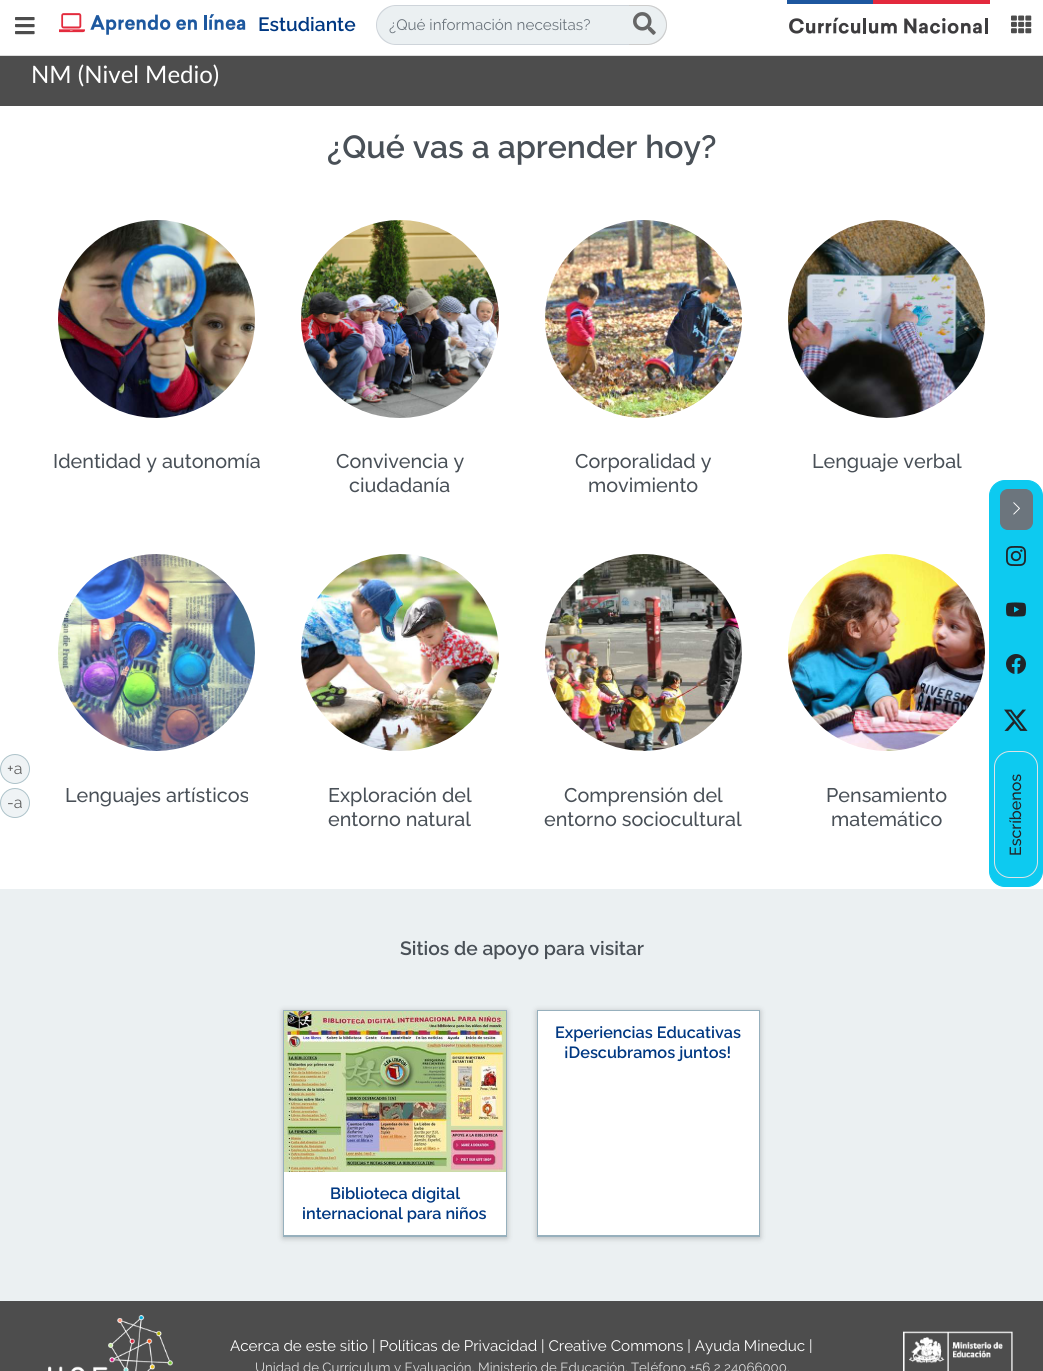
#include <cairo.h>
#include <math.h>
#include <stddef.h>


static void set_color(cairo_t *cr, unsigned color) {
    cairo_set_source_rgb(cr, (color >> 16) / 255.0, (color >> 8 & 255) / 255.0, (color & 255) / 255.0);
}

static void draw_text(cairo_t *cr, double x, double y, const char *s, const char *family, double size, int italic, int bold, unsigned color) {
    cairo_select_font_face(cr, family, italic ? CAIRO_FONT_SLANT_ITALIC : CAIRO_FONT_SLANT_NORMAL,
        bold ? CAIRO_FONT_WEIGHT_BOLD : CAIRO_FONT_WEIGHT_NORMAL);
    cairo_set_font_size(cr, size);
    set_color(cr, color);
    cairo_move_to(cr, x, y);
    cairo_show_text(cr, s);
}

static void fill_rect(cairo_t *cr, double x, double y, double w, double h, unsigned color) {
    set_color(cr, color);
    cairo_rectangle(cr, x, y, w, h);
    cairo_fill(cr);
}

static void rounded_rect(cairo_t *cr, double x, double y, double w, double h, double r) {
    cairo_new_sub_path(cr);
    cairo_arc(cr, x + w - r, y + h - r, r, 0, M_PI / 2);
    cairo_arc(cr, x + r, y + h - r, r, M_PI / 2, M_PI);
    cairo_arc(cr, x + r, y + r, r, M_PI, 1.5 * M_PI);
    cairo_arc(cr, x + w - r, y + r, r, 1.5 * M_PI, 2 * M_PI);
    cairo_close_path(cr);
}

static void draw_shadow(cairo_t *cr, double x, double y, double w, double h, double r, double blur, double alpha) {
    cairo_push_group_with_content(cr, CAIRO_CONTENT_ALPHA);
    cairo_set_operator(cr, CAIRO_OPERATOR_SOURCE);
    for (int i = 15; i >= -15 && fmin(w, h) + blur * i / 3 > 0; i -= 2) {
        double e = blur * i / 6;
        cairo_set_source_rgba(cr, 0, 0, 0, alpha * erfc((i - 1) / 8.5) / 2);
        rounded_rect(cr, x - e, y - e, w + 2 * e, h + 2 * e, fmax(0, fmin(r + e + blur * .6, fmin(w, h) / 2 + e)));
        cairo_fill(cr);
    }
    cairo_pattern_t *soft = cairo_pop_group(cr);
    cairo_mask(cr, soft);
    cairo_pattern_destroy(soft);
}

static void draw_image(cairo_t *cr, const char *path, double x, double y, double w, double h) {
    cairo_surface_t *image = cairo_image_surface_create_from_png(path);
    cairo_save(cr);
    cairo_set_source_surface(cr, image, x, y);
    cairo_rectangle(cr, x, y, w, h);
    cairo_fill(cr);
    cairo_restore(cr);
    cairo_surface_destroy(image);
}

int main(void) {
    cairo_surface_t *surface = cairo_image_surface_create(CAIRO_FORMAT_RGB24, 1043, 1371);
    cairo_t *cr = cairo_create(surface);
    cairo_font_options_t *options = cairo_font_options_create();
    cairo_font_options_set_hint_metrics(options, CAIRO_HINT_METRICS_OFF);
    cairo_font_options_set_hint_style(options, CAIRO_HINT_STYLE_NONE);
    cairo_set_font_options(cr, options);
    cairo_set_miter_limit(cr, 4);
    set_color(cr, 0xFFFFFF);
    cairo_paint(cr);
    set_color(cr, 0xEFF3F5);
    cairo_arc(cr, 15, 769, 14.5, 0, 2 * M_PI);
    cairo_fill_preserve(cr);
    set_color(cr, 0xADC2C9);
    cairo_set_line_width(cr, 1);
    cairo_stroke(cr);
    draw_text(cr, 7, 774, "+a", "Raleway", 16, 0, 0, 0x5C5C5C);
    set_color(cr, 0xEFF3F5);
    cairo_new_path(cr);
    cairo_arc(cr, 15, 803, 14.5, 0, 2 * M_PI);
    cairo_fill_preserve(cr);
    set_color(cr, 0xADC2C9);
    cairo_stroke(cr);
    draw_text(cr, 7, 808, "-a", "Raleway", 16, 0, 0, 0x5C5C5C);
    fill_rect(cr, 0, 55, 1043, 1, 0xDDDDDD);
    draw_image(cr, "assets/img1.png", 15, 17, 20, 18);
    draw_image(cr, "assets/img2.png", 59, 13, 187, 22);
    draw_text(cr, 258, 31, "Estudiante", "Raleway SemiBold", 19.25, 0, 0, 0x003882);
    set_color(cr, 0xEBF0F2);
    cairo_new_path(cr);
    cairo_move_to(cr, 396, 6);
    cairo_line_to(cr, 629, 6);
    cairo_line_to(cr, 629, 44);
    cairo_line_to(cr, 396, 44);
    cairo_curve_to(cr, 385.5, 44, 377, 35.5, 377, 25);
    cairo_curve_to(cr, 377, 14.5, 385.5, 6, 396, 6);
    cairo_close_path(cr);
    cairo_fill(cr);
    set_color(cr, 0xCED4DA);
    cairo_set_fill_rule(cr, CAIRO_FILL_RULE_EVEN_ODD);
    cairo_new_path(cr);
    cairo_move_to(cr, 396, 5);
    cairo_line_to(cr, 629, 5);
    cairo_line_to(cr, 629, 45);
    cairo_line_to(cr, 396, 45);
    cairo_curve_to(cr, 385, 45, 376, 36, 376, 25);
    cairo_curve_to(cr, 376, 14, 385, 5, 396, 5);
    cairo_close_path(cr);
    cairo_move_to(cr, 396, 6);
    cairo_line_to(cr, 629, 6);
    cairo_line_to(cr, 629, 44);
    cairo_line_to(cr, 396, 44);
    cairo_curve_to(cr, 386, 44, 377, 35, 377, 25);
    cairo_curve_to(cr, 377, 15, 386, 6, 396, 6);
    cairo_close_path(cr);
    cairo_fill(cr);
    draw_text(cr, 389, 30, "¿Qué información necesitas?", "Raleway", 15.2, 0, 0, 0x6C757D);
    set_color(cr, 0xEBF0F2);
    cairo_new_path(cr);
    cairo_move_to(cr, 629, 5);
    cairo_line_to(cr, 647, 5);
    cairo_curve_to(cr, 658, 5, 667, 14, 667, 25);
    cairo_curve_to(cr, 667, 36, 658, 45, 647, 45);
    cairo_line_to(cr, 629, 45);
    cairo_close_path(cr);
    cairo_fill(cr);
    set_color(cr, 0xCCCCCC);
    cairo_new_path(cr);
    cairo_move_to(cr, 629, 5);
    cairo_line_to(cr, 647, 5);
    cairo_curve_to(cr, 658, 5, 667, 14, 667, 25);
    cairo_curve_to(cr, 667, 36, 658, 45, 647, 45);
    cairo_line_to(cr, 629, 45);
    cairo_close_path(cr);
    cairo_move_to(cr, 629, 6);
    cairo_line_to(cr, 647, 6);
    cairo_curve_to(cr, 657, 6, 666, 15, 666, 25);
    cairo_curve_to(cr, 666, 35, 657, 44, 647, 44);
    cairo_line_to(cr, 629, 44);
    cairo_close_path(cr);
    cairo_fill(cr);
    draw_image(cr, "assets/img3.png", 633, 12, 23, 23);
    draw_image(cr, "assets/img4.png", 787, 0, 203, 34);
    draw_image(cr, "assets/img5.png", 1011, 15, 21, 19);
    fill_rect(cr, 0, 56, 1043, 50, 0x4D4D4D);
    draw_text(cr, 31, 83, "NM (Nivel Medio)", "Lato", 24, 0, 0, 0xFFFFFF);
    draw_text(cr, 327, 158, "¿Qué vas a aprender hoy?", "Raleway SemiBold", 32, 0, 0, 0x495057);
    draw_image(cr, "assets/img6.png", 58, 220, 197, 198);
    draw_text(cr, 53, 468, "Identidad y autonomía", "Raleway Medium", 19.75, 0, 0, 0x495057);
    draw_image(cr, "assets/img7.png", 301, 220, 198, 198);
    draw_text(cr, 336, 468, "Convivencia y", "Raleway Medium", 19.75, 0, 0, 0x495057);
    draw_text(cr, 349, 492, "ciudadanía", "Raleway Medium", 19.75, 0, 0, 0x495057);
    draw_image(cr, "assets/img8.png", 545, 220, 197, 198);
    draw_text(cr, 575, 468, "Corporalidad y", "Raleway Medium", 19.75, 0, 0, 0x495057);
    draw_text(cr, 588, 492, "movimiento", "Raleway Medium", 19.75, 0, 0, 0x495057);
    draw_image(cr, "assets/img9.png", 788, 220, 197, 198);
    draw_text(cr, 812, 468, "Lenguaje verbal", "Raleway Medium", 19.75, 0, 0, 0x495057);
    draw_image(cr, "assets/img10.png", 58, 554, 197, 197);
    draw_text(cr, 65, 802, "Lenguajes artísticos", "Raleway Medium", 19.75, 0, 0, 0x495057);
    draw_image(cr, "assets/img11.png", 301, 554, 198, 197);
    draw_text(cr, 328, 802, "Exploración del", "Raleway Medium", 19.75, 0, 0, 0x495057);
    draw_text(cr, 328, 826, "entorno natural", "Raleway Medium", 19.75, 0, 0, 0x495057);
    draw_image(cr, "assets/img12.png", 545, 554, 197, 197);
    draw_text(cr, 564, 802, "Comprensión del", "Raleway Medium", 19.75, 0, 0, 0x495057);
    draw_text(cr, 544, 826, "entorno sociocultural", "Raleway Medium", 19.75, 0, 0, 0x495057);
    draw_image(cr, "assets/img13.png", 788, 554, 197, 197);
    draw_text(cr, 826, 802, "Pensamiento", "Raleway Medium", 19.75, 0, 0, 0x495057);
    draw_text(cr, 831, 826, "matemático", "Raleway Medium", 19.75, 0, 0, 0x495057);
    set_color(cr, 0x0DCAF0);
    rounded_rect(cr, 989.5, 480.5, 53, 406, 15.5);
    cairo_fill_preserve(cr);
    cairo_stroke(cr);
    set_color(cr, 0x6C757D);
    rounded_rect(cr, 1000.5, 489.5, 32, 40, 7.5);
    cairo_fill_preserve(cr);
    cairo_stroke(cr);
    draw_image(cr, "assets/img14.png", 1013, 502, 7, 13);
    draw_image(cr, "assets/img15.png", 1006, 546, 20, 20);
    draw_image(cr, "assets/img16.png", 1006, 602, 20, 15);
    draw_image(cr, "assets/img17.png", 1006, 654, 20, 20);
    draw_image(cr, "assets/img18.png", 1004, 709, 24, 22);
    rounded_rect(cr, 994.5, 751.5, 43, 126, 15.5);
    set_color(cr, 0xDEE2E6);
    cairo_stroke(cr);
    cairo_save(cr);
    cairo_translate(cr, 1021, 856);
    cairo_rotate(cr, -90 * M_PI / 180);
    draw_text(cr, 0, 0, "Escríbenos", "Raleway Medium", 16, 0, 0, 0x212529);
    cairo_restore(cr);
    fill_rect(cr, 0, 889, 1043, 412, 0xEBF0F2);
    draw_text(cr, 400, 955, "Sitios de apoyo para visitar", "Raleway SemiBold", 19.25, 0, 0, 0x495057);
    set_color(cr, 0x202124);
    draw_shadow(cr, 537, 1011, 223, 227, 0, 3, 0.28);
    fill_rect(cr, 538, 1011, 221, 224, 0xFFFFFF);
    fill_rect(cr, 537, 1010, 223, 1, 0x97B0BD);
    fill_rect(cr, 759, 1010, 1, 227, 0x97B0BD);
    fill_rect(cr, 537, 1235, 223, 2, 0x97B0BD);
    fill_rect(cr, 537, 1010, 1, 227, 0x97B0BD);
    draw_text(cr, 555, 1038, "Experiencias Educativas", "Raleway SemiBold", 16.25, 0, 0, 0x003882);
    draw_text(cr, 564, 1058, "¡Descubramos juntos!", "Raleway SemiBold", 16.25, 0, 0, 0x003882);
    set_color(cr, 0x202124);
    draw_shadow(cr, 283, 1011, 224, 227, 0, 3, 0.28);
    fill_rect(cr, 284, 1172, 222, 63, 0xFFFFFF);
    fill_rect(cr, 283, 1010, 224, 1, 0x97B0BD);
    fill_rect(cr, 506, 1010, 1, 227, 0x97B0BD);
    fill_rect(cr, 283, 1235, 224, 2, 0x97B0BD);
    fill_rect(cr, 283, 1010, 1, 227, 0x97B0BD);
    draw_image(cr, "assets/img19.png", 284, 1011, 222, 161);
    draw_text(cr, 330, 1199, "Biblioteca digital", "Raleway SemiBold", 16.25, 0, 0, 0x003882);
    draw_text(cr, 302, 1219, "internacional para niños", "Raleway SemiBold", 16.25, 0, 0, 0x003882);
    fill_rect(cr, 0, 1301, 1043, 70, 0x4D4D4D);
    draw_image(cr, "assets/img20.png", 48, 1315, 125, 56);
    draw_text(cr, 230, 1351, "Acerca de este sitio | Políticas de Privacidad | Creative Commons | Ayuda Mineduc |", "Raleway", 15.2, 0, 0, 0xFFFFFF);
    draw_text(cr, 255, 1372, "Unidad de Currículum y Evaluación, Ministerio de Educación. Teléfono +56 2 24066000.", "Raleway", 13.3, 0, 0, 0xDBDBDB);
    draw_image(cr, "assets/img21.png", 903, 1331, 110, 40);
    cairo_surface_write_to_png(surface, "output.png");
    cairo_font_options_destroy(options);
    cairo_destroy(cr);
    cairo_surface_destroy(surface);
    return 0;
}
